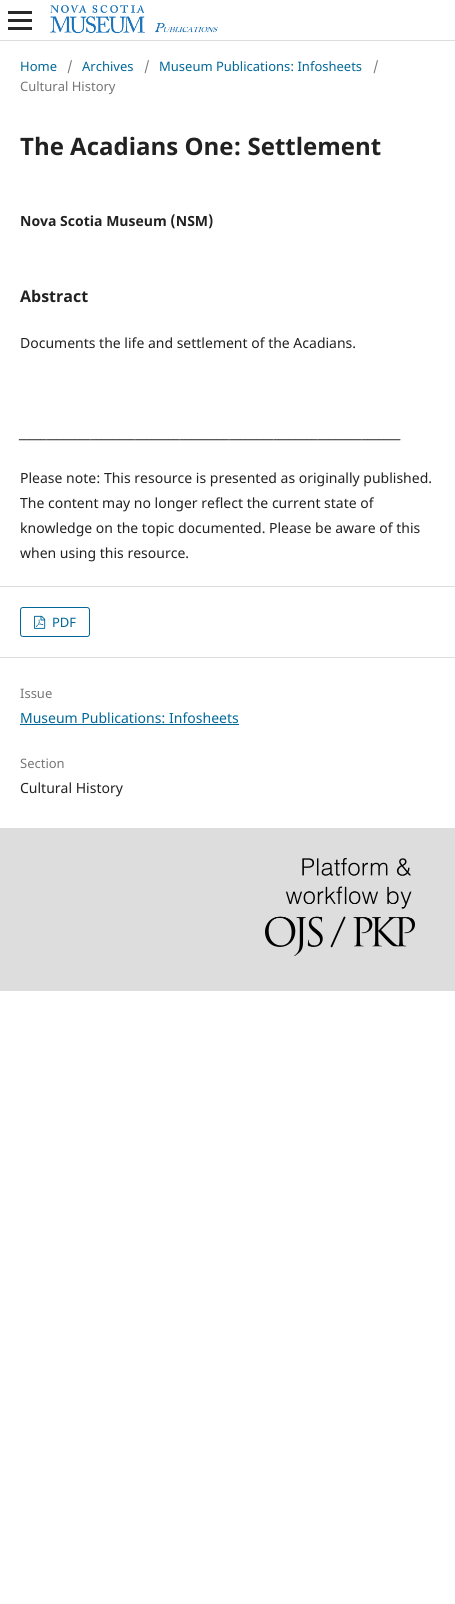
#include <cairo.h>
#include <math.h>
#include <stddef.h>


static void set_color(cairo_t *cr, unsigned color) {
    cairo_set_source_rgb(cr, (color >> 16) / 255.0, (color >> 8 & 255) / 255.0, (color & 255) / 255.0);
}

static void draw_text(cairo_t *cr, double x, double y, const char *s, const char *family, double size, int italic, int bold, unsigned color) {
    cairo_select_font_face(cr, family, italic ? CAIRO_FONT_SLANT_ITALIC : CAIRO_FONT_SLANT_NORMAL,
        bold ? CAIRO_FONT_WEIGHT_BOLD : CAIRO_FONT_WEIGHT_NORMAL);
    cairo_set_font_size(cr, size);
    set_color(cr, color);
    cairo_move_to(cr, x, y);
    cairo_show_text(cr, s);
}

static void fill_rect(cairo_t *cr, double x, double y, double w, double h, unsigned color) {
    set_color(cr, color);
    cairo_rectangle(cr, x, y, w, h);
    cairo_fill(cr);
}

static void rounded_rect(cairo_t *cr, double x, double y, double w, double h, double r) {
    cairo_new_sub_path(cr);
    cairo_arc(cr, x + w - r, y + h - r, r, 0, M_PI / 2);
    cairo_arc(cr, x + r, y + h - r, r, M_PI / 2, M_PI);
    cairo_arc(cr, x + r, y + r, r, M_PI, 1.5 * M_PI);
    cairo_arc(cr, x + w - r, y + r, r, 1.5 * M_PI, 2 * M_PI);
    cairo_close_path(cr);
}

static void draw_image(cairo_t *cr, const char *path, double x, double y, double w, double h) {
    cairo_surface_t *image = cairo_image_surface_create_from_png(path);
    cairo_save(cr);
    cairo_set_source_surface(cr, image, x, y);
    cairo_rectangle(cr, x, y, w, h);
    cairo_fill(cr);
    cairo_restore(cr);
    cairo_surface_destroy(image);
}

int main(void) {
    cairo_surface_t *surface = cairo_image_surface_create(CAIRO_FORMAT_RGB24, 455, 1604);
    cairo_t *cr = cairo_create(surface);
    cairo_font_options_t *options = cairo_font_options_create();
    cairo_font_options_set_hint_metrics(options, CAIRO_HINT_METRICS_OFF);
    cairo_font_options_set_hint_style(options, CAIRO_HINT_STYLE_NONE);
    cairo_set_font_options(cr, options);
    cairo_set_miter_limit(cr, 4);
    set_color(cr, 0xFFFFFF);
    cairo_paint(cr);
    fill_rect(cr, 0, 40, 455, 1, 0xDDDDDD);
    fill_rect(cr, 8, 27, 24, 3, 0x292929);
    fill_rect(cr, 8, 11, 24, 3, 0x292929);
    fill_rect(cr, 8, 19, 24, 3, 0x292929);
    draw_image(cr, "assets/img1.png", 50, 5, 168, 29);
    draw_text(cr, 20, 71, "Home", "Noto Sans", 13, 0, 0, 0x006798);
    draw_text(cr, 67, 71, "/", "Noto Sans", 13, 0, 0, 0x757575);
    draw_text(cr, 82, 71, "Archives", "Noto Sans", 13, 0, 0, 0x006798);
    draw_text(cr, 144, 71, "/", "Noto Sans", 13, 0, 0, 0x757575);
    draw_text(cr, 159, 71, "Museum Publications: Infosheets", "Noto Sans", 13, 0, 0, 0x006798);
    draw_text(cr, 373, 71, "/", "Noto Sans", 13, 0, 0, 0x757575);
    draw_text(cr, 20, 91, "Cultural History", "Noto Sans", 13, 0, 0, 0x757575);
    draw_text(cr, 20, 155, "The Acadians One: Settlement", "Noto Sans", 24, 0, 1, 0x212121);
    draw_text(cr, 20, 226, "Nova Scotia Museum (NSM)", "Noto Sans", 14, 0, 1, 0x212121);
    draw_text(cr, 20, 302, "Abstract", "Noto Sans", 16, 0, 1, 0x212121);
    draw_text(cr, 20, 348, "Documents the life and settlement of the Acadians.", "Noto Sans", 14, 0, 0, 0x212121);
    draw_text(cr, 20, 438, "_____________________________________________________________________", "Noto Sans", 14, 1, 0, 0x212121);
    draw_text(cr, 20, 483, "Please note: This resource is presented as originally published.", "Noto Sans", 14, 0, 0, 0x212121);
    draw_text(cr, 20, 508, "The content may no longer reflect the current state of", "Noto Sans", 14, 0, 0, 0x212121);
    draw_text(cr, 20, 533, "knowledge on the topic documented. Please be aware of this", "Noto Sans", 14, 0, 0, 0x212121);
    draw_text(cr, 20, 558, "when using this resource.", "Noto Sans", 14, 0, 0, 0x212121);
    fill_rect(cr, 0, 586, 455, 1, 0xDDDDDD);
    fill_rect(cr, 0, 657, 455, 1, 0xDDDDDD);
    rounded_rect(cr, 20.5, 607.5, 69, 29, 2.5);
    set_color(cr, 0x006798);
    cairo_set_line_width(cr, 1);
    cairo_stroke(cr);
    draw_image(cr, "assets/img2.png", 34, 615, 12, 14);
    draw_text(cr, 52, 627, "PDF", "Noto Sans", 13, 0, 0, 0x006798);
    draw_text(cr, 20, 698, "Issue", "Noto Sans", 13, 0, 0, 0x757575);
    draw_text(cr, 20, 723, "Museum Publications: Infosheets", "Noto Sans", 14, 0, 0, 0x006798);
    fill_rect(cr, 20, 724, 219, 1, 0x006798);
    draw_text(cr, 20, 768, "Section", "Noto Sans", 13, 0, 0, 0x757575);
    draw_text(cr, 20, 793, "Cultural History", "Noto Sans", 14, 0, 0, 0x212121);
    fill_rect(cr, 0, 828, 455, 163, 0xDDDDDD);
    draw_image(cr, "assets/img3.png", 265, 858, 150, 98);
    cairo_surface_write_to_png(surface, "output.png");
    cairo_font_options_destroy(options);
    cairo_destroy(cr);
    cairo_surface_destroy(surface);
    return 0;
}
